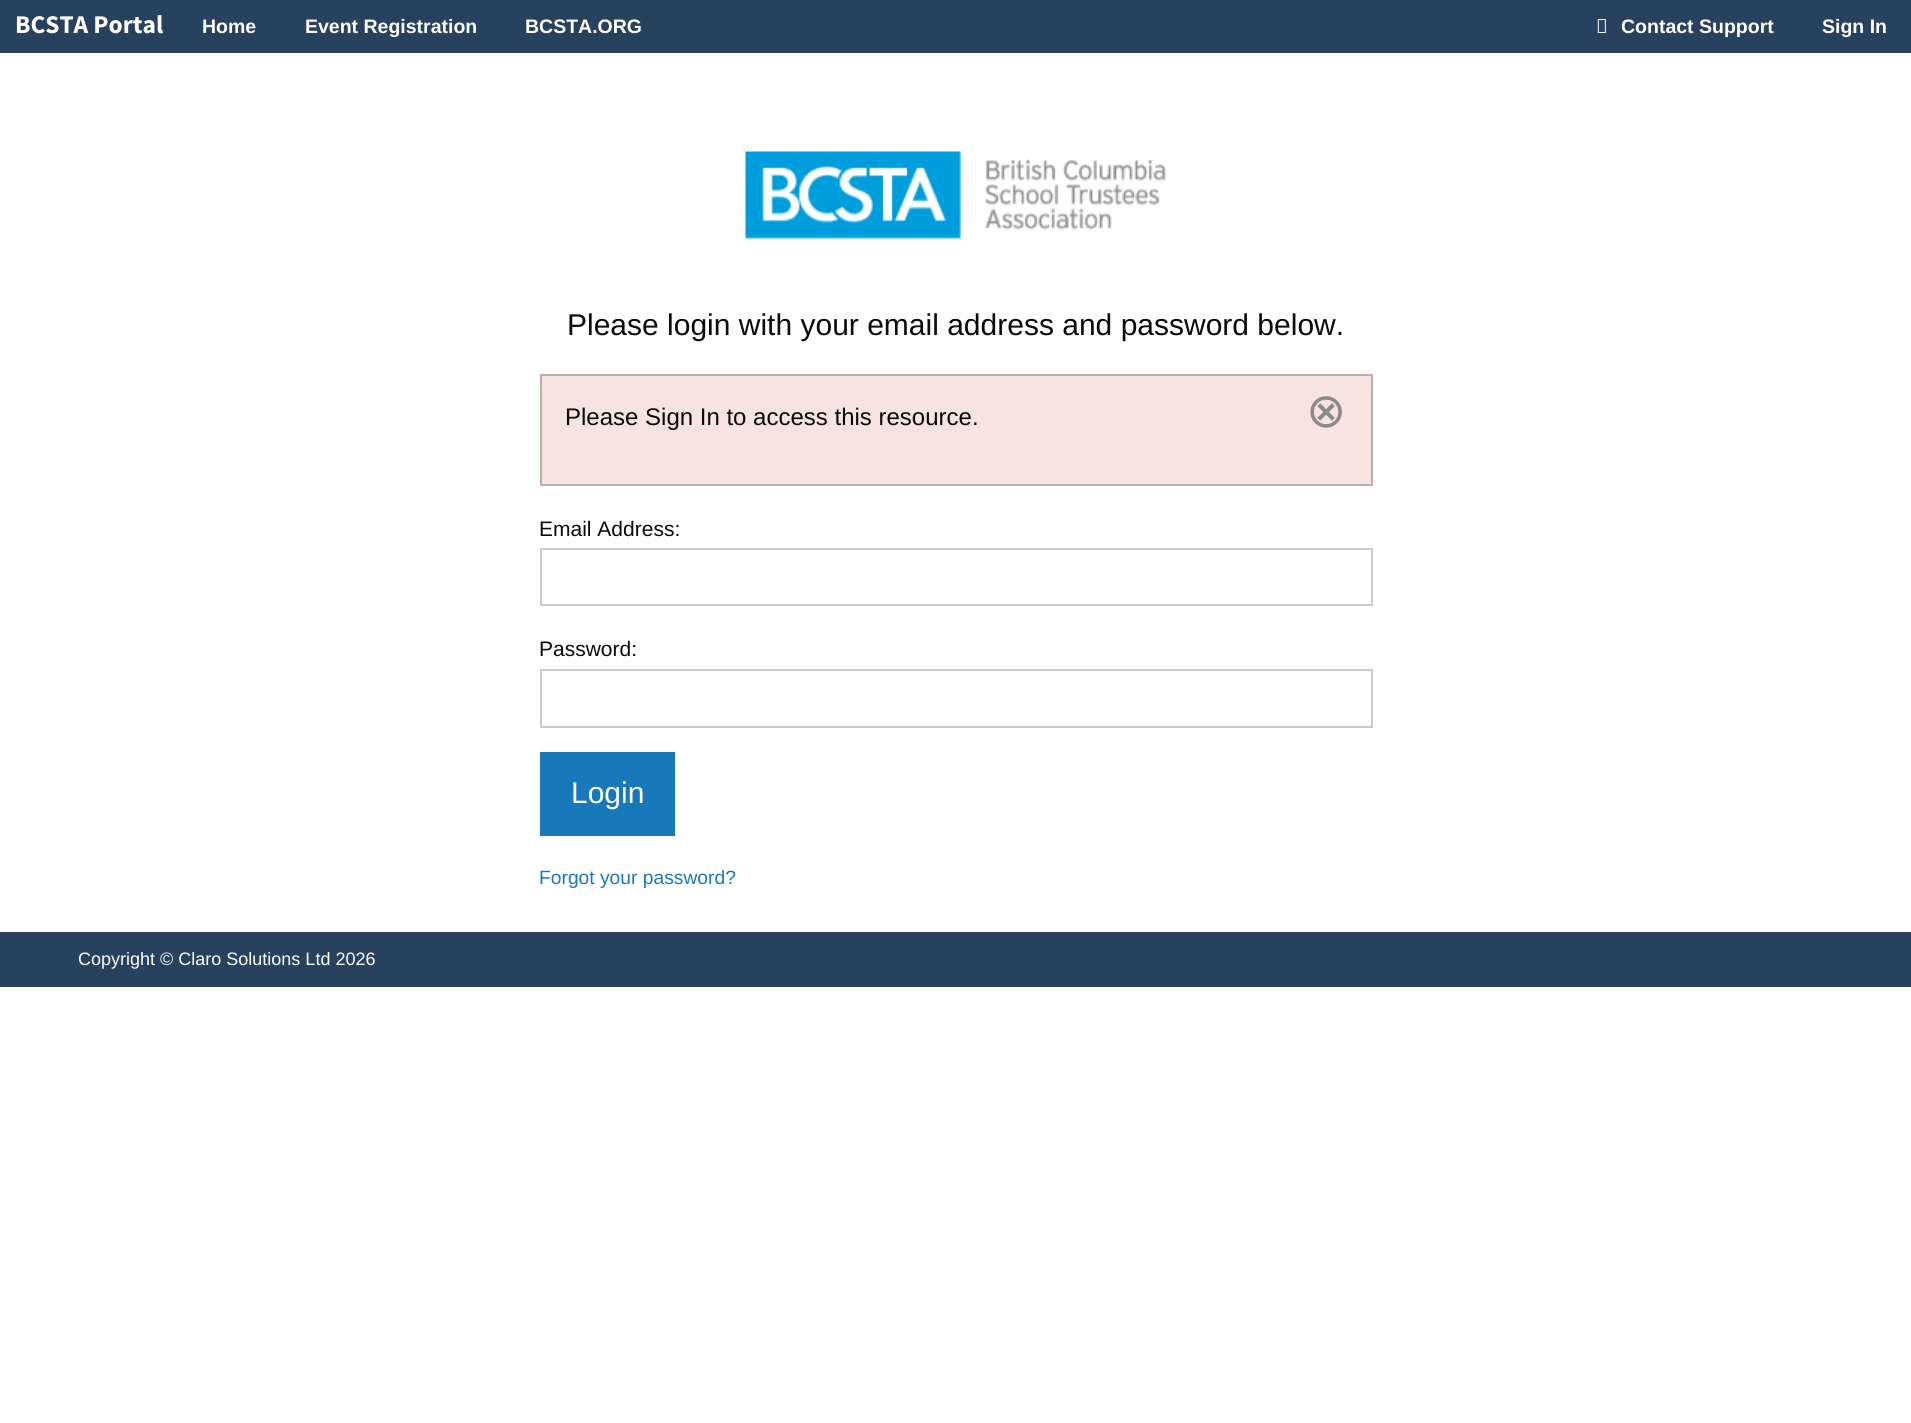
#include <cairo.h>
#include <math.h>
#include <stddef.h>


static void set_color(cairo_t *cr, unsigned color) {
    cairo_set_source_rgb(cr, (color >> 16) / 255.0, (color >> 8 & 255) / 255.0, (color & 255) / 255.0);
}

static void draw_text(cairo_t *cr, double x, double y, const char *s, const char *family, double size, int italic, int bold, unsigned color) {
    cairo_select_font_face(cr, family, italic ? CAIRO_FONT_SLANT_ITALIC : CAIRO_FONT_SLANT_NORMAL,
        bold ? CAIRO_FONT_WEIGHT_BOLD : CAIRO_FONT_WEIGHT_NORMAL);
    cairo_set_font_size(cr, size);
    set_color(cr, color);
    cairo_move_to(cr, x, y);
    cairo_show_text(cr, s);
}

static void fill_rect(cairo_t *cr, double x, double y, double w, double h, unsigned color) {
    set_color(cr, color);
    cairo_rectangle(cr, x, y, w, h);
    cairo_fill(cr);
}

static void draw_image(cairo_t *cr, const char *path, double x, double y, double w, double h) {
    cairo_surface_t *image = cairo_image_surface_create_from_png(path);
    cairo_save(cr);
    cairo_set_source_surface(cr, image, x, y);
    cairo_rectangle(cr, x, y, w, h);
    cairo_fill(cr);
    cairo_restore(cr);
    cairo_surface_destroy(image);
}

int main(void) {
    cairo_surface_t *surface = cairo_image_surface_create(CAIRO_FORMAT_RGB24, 1911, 1423);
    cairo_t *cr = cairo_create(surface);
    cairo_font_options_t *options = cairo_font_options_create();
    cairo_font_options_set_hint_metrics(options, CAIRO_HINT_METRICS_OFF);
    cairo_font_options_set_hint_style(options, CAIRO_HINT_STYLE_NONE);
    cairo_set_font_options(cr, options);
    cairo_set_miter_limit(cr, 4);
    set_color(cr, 0xFFFFFF);
    cairo_paint(cr);
    fill_rect(cr, 0, 0, 1911, 53, 0x28415F);
    draw_text(cr, 15, 33, "BCSTA Portal", "Source Sans Pro", 25.5, 0, 1, 0xFEFEFE);
    draw_text(cr, 202, 33, "Home", "Liberation Sans", 19.5, 0, 1, 0xFEFEFE);
    draw_text(cr, 305, 33, "Event Registration", "Liberation Sans", 19.5, 0, 1, 0xFEFEFE);
    draw_text(cr, 525, 33, "BCSTA.ORG", "Liberation Sans", 19.5, 0, 1, 0xFEFEFE);
    draw_image(cr, "assets/img1.png", 1597, 19, 9, 14);
    draw_text(cr, 1621, 33, "Contact Support", "Liberation Sans", 19.5, 0, 1, 0xFEFEFE);
    draw_text(cr, 1822, 33, "Sign In", "Liberation Sans", 19.5, 0, 1, 0xFEFEFE);
    draw_image(cr, "assets/img2.png", 745, 151, 421, 88);
    draw_text(cr, 567, 335, "Please login with your email address and password below.", "Liberation Sans", 30, 0, 0, 0x0A0A0A);
    set_color(cr, 0xF7E4E1);
    cairo_rectangle(cr, 541, 375, 831, 110);
    cairo_fill_preserve(cr);
    set_color(cr, 0xBCAEAB);
    cairo_stroke(cr);
    draw_text(cr, 565, 425, "Please Sign In to access this resource.", "Liberation Sans", 24, 0, 0, 0x0A0A0A);
    draw_text(cr, 1306, 427, "⊗", "DejaVu Sans", 48, 0, 0, 0x8A8A8A);
    draw_text(cr, 539, 536, "Email Address:", "Liberation Sans", 21, 0, 0, 0x0A0A0A);
    cairo_rectangle(cr, 541, 549, 831, 56);
    set_color(cr, 0xCACACA);
    cairo_stroke(cr);
    draw_text(cr, 539, 656, "Password:", "Liberation Sans", 21, 0, 0, 0x0A0A0A);
    cairo_rectangle(cr, 541, 670, 831, 57);
    set_color(cr, 0xCACACA);
    cairo_stroke(cr);
    fill_rect(cr, 540, 752, 135, 84, 0x1779BA);
    draw_text(cr, 571, 803, "Login", "Liberation Sans", 30, 0, 0, 0xFEFEFE);
    draw_text(cr, 539, 884, "Forgot your password?", "Liberation Sans", 19.25, 0, 0, 0x1779BA);
    fill_rect(cr, 0, 932, 1911, 55, 0x28415F);
    draw_text(cr, 78, 965, "Copyright © Claro Solutions Ltd 2026", "Liberation Sans", 18, 0, 0, 0xFEFEFE);
    cairo_surface_write_to_png(surface, "output.png");
    cairo_font_options_destroy(options);
    cairo_destroy(cr);
    cairo_surface_destroy(surface);
    return 0;
}
